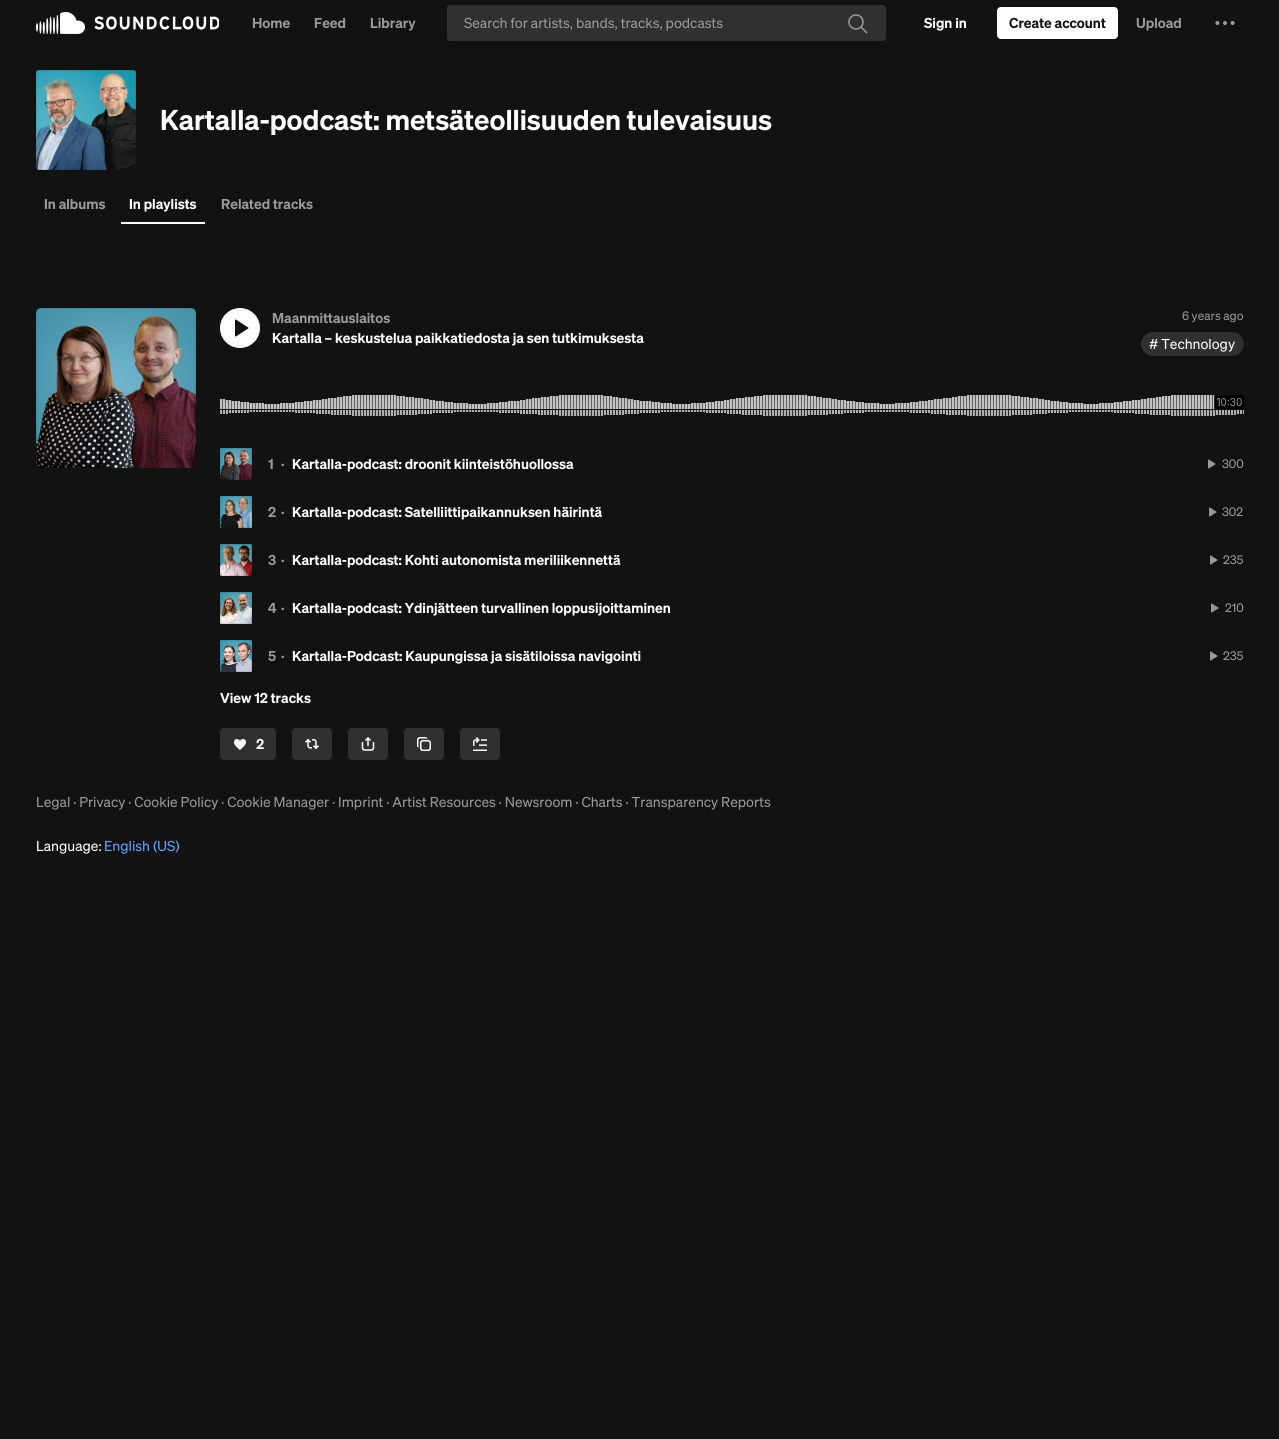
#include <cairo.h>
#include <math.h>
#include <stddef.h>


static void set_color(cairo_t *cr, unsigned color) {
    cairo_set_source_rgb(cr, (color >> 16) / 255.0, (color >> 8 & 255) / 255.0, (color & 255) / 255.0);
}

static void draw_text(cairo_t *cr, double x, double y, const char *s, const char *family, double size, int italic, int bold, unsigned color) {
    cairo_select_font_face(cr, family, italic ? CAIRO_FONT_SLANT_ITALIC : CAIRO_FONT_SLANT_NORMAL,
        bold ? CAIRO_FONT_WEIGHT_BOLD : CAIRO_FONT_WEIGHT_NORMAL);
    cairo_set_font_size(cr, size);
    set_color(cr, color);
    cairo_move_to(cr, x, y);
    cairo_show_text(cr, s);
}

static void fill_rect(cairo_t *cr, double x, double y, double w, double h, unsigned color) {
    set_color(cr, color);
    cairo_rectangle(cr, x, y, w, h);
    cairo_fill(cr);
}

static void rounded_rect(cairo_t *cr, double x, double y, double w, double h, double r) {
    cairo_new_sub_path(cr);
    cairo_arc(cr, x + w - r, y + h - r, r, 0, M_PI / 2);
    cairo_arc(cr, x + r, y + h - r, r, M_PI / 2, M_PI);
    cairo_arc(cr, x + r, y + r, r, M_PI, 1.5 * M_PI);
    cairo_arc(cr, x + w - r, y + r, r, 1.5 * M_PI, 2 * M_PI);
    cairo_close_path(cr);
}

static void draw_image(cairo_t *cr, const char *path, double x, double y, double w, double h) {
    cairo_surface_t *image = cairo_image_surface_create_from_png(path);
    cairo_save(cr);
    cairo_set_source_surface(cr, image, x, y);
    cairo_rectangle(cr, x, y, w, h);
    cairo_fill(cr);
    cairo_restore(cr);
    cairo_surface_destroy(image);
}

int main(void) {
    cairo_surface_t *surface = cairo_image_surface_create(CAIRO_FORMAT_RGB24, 1279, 1439);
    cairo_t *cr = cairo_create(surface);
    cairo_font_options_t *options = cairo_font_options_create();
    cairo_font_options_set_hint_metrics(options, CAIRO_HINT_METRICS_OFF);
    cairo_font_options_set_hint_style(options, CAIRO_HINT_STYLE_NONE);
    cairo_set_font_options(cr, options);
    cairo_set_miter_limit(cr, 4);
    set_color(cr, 0x121212);
    cairo_paint(cr);
    draw_image(cr, "assets/img1.png", 36, 12, 183, 22);
    draw_text(cr, 252, 28, "Home", "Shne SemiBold", 14, 0, 0, 0x999999);
    draw_text(cr, 314, 28, "Feed", "Shne SemiBold", 14, 0, 0, 0x999999);
    draw_text(cr, 370, 28, "Library", "Shne SemiBold", 14, 0, 0, 0x999999);
    set_color(cr, 0x303030);
    rounded_rect(cr, 447, 5, 439, 36, 3);
    cairo_fill(cr);
    draw_text(cr, 464, 28, "Search for artists, bands, tracks, podcasts", "Shne", 14, 0, 0, 0x999999);
    draw_image(cr, "assets/img2.png", 848, 14, 20, 20);
    draw_text(cr, 924, 28, "Sign in", "Shne SemiBold", 14, 0, 0, 0xFFFFFF);
    rounded_rect(cr, 997, 7, 121, 32, 4);
    cairo_fill(cr);
    draw_text(cr, 1009, 28, "Create account", "Shne SemiBold", 14, 0, 0, 0x121212);
    draw_text(cr, 1136, 28, "Upload", "Shne SemiBold", 14, 0, 0, 0x999999);
    draw_image(cr, "assets/img3.png", 1215, 21, 20, 4);
    draw_image(cr, "assets/img4.png", 36, 70, 100, 100);
    rounded_rect(cr, 36.5, 70.5, 99, 99, 2.5);
    cairo_set_source_rgba(cr, 0.071, 0.071, 0.071, 0.1);
    cairo_set_line_width(cr, 1);
    cairo_stroke(cr);
    draw_text(cr, 160, 130, "Kartalla-podcast: metsäteollisuuden tulevaisuus", "Shne SemiBold", 28, 0, 0, 0xFFFFFF);
    draw_text(cr, 44, 209, "In albums", "Shne SemiBold", 14, 0, 0, 0x999999);
    fill_rect(cr, 121, 222, 84, 2, 0xFFFFFF);
    draw_text(cr, 129, 209, "In playlists", "Shne SemiBold", 14, 0, 0, 0xFFFFFF);
    draw_text(cr, 221, 209, "Related tracks", "Shne SemiBold", 14, 0, 0, 0x999999);
    draw_image(cr, "assets/img5.png", 36, 308, 160, 160);
    rounded_rect(cr, 36.5, 308.5, 159, 159, 4.5);
    cairo_set_source_rgba(cr, 0.071, 0.071, 0.071, 0.1);
    cairo_stroke(cr);
    set_color(cr, 0xFFFFFF);
    cairo_arc(cr, 240, 328, 20, 0, 2 * M_PI);
    cairo_fill(cr);
    draw_image(cr, "assets/img6.png", 235, 319, 14, 18);
    draw_text(cr, 272, 323, "Maanmittauslaitos", "Shne SemiBold", 14, 0, 0, 0x999999);
    draw_text(cr, 272, 343, "Kartalla – keskustelua paikkatiedosta ja sen tutkimuksesta", "Shne SemiBold", 14, 0, 0, 0xFFFFFF);
    draw_text(cr, 1182, 320, "6 years ago", "Shne", 12, 0, 0, 0x999999);
    set_color(cr, 0x303030);
    rounded_rect(cr, 1141, 332, 103, 24, 12);
    cairo_fill(cr);
    draw_text(cr, 1149, 349, "# Technology", "Shne", 14, 0, 0, 0xFFFFFF);
    draw_image(cr, "assets/img7.png", 220, 395, 1024, 21);
    draw_image(cr, "assets/img8.png", 1214, 395, 30, 14);
    draw_image(cr, "assets/img9.png", 220, 448, 32, 32);
    cairo_rectangle(cr, 220.5, 448.5, 31, 31);
    cairo_set_source_rgba(cr, 0.071, 0.071, 0.071, 0.1);
    cairo_stroke(cr);
    draw_text(cr, 268, 469, "1", "Shne SemiBold", 14, 0, 0, 0x999999);
    draw_text(cr, 281, 469, "·", "Shne SemiBold", 14, 0, 0, 0x999999);
    draw_text(cr, 292, 469, "Kartalla-podcast: droonit kiinteistöhuollossa", "Shne SemiBold", 14, 0, 0, 0xFFFFFF);
    draw_image(cr, "assets/img10.png", 1208, 459, 8, 10);
    draw_text(cr, 1222, 468, "300", "Shne", 12, 0, 0, 0x999999);
    draw_image(cr, "assets/img11.png", 220, 496, 32, 32);
    cairo_rectangle(cr, 220.5, 496.5, 31, 31);
    cairo_set_source_rgba(cr, 0.071, 0.071, 0.071, 0.1);
    cairo_stroke(cr);
    draw_text(cr, 268, 517, "2", "Shne SemiBold", 14, 0, 0, 0x999999);
    draw_text(cr, 281, 517, "·", "Shne SemiBold", 14, 0, 0, 0x999999);
    draw_text(cr, 292, 517, "Kartalla-podcast: Satelliittipaikannuksen häirintä", "Shne SemiBold", 14, 0, 0, 0xFFFFFF);
    draw_image(cr, "assets/img10.png", 1209, 507, 8, 10);
    draw_text(cr, 1222, 516, "302", "Shne", 12, 0, 0, 0x999999);
    draw_image(cr, "assets/img12.png", 220, 544, 32, 32);
    cairo_rectangle(cr, 220.5, 544.5, 31, 31);
    cairo_set_source_rgba(cr, 0.071, 0.071, 0.071, 0.1);
    cairo_stroke(cr);
    draw_text(cr, 268, 565, "3", "Shne SemiBold", 14, 0, 0, 0x999999);
    draw_text(cr, 281, 565, "·", "Shne SemiBold", 14, 0, 0, 0x999999);
    draw_text(cr, 292, 565, "Kartalla-podcast: Kohti autonomista meriliikennettä", "Shne SemiBold", 14, 0, 0, 0xFFFFFF);
    draw_image(cr, "assets/img10.png", 1210, 555, 8, 10);
    draw_text(cr, 1223, 564, "235", "Shne", 12, 0, 0, 0x999999);
    draw_image(cr, "assets/img13.png", 220, 592, 32, 32);
    cairo_rectangle(cr, 220.5, 592.5, 31, 31);
    cairo_set_source_rgba(cr, 0.071, 0.071, 0.071, 0.1);
    cairo_stroke(cr);
    draw_text(cr, 268, 613, "4", "Shne SemiBold", 14, 0, 0, 0x999999);
    draw_text(cr, 281, 613, "·", "Shne SemiBold", 14, 0, 0, 0x999999);
    draw_text(cr, 292, 613, "Kartalla-podcast: Ydinjätteen turvallinen loppusijoittaminen", "Shne SemiBold", 14, 0, 0, 0xFFFFFF);
    draw_image(cr, "assets/img10.png", 1211, 603, 8, 10);
    draw_text(cr, 1225, 612, "210", "Shne", 12, 0, 0, 0x999999);
    draw_image(cr, "assets/img14.png", 220, 640, 32, 32);
    cairo_rectangle(cr, 220.5, 640.5, 31, 31);
    cairo_set_source_rgba(cr, 0.071, 0.071, 0.071, 0.1);
    cairo_stroke(cr);
    draw_text(cr, 268, 661, "5", "Shne SemiBold", 14, 0, 0, 0x999999);
    draw_text(cr, 281, 661, "·", "Shne SemiBold", 14, 0, 0, 0x999999);
    draw_text(cr, 292, 661, "Kartalla-Podcast: Kaupungissa ja sisätiloissa navigointi", "Shne SemiBold", 14, 0, 0, 0xFFFFFF);
    draw_image(cr, "assets/img10.png", 1210, 651, 8, 10);
    draw_text(cr, 1223, 660, "235", "Shne", 12, 0, 0, 0x999999);
    draw_text(cr, 220, 703, "View 12 tracks", "Shne SemiBold", 14, 0, 0, 0xFFFFFF);
    set_color(cr, 0x303030);
    rounded_rect(cr, 220, 728, 56, 32, 4);
    cairo_fill(cr);
    draw_image(cr, "assets/img15.png", 234, 739, 12, 11);
    draw_text(cr, 256, 749, "2", "Shne SemiBold", 14, 0, 0, 0xFFFFFF);
    set_color(cr, 0x303030);
    rounded_rect(cr, 292, 728, 40, 32, 4);
    cairo_fill(cr);
    draw_image(cr, "assets/img16.png", 305, 738, 14, 12);
    rounded_rect(cr, 348, 728, 40, 32, 4);
    cairo_fill(cr);
    draw_image(cr, "assets/img17.png", 361, 737, 14, 14);
    rounded_rect(cr, 404, 728, 40, 32, 4);
    cairo_fill(cr);
    draw_image(cr, "assets/img18.png", 417, 737, 14, 14);
    rounded_rect(cr, 460, 728, 40, 32, 4);
    cairo_fill(cr);
    draw_image(cr, "assets/img19.png", 473, 737, 14, 14);
    draw_text(cr, 36, 807, "Legal · Privacy · Cookie Policy · Cookie Manager · Imprint · Artist Resources · Newsroom · Charts · Transparency Reports", "Shne", 14, 0, 0, 0x999999);
    draw_text(cr, 36, 851, "Language:", "Shne", 14, 0, 0, 0xFFFFFF);
    draw_text(cr, 104, 851, "English (US)", "Shne", 14, 0, 0, 0x699FFF);
    cairo_surface_write_to_png(surface, "output.png");
    cairo_font_options_destroy(options);
    cairo_destroy(cr);
    cairo_surface_destroy(surface);
    return 0;
}
